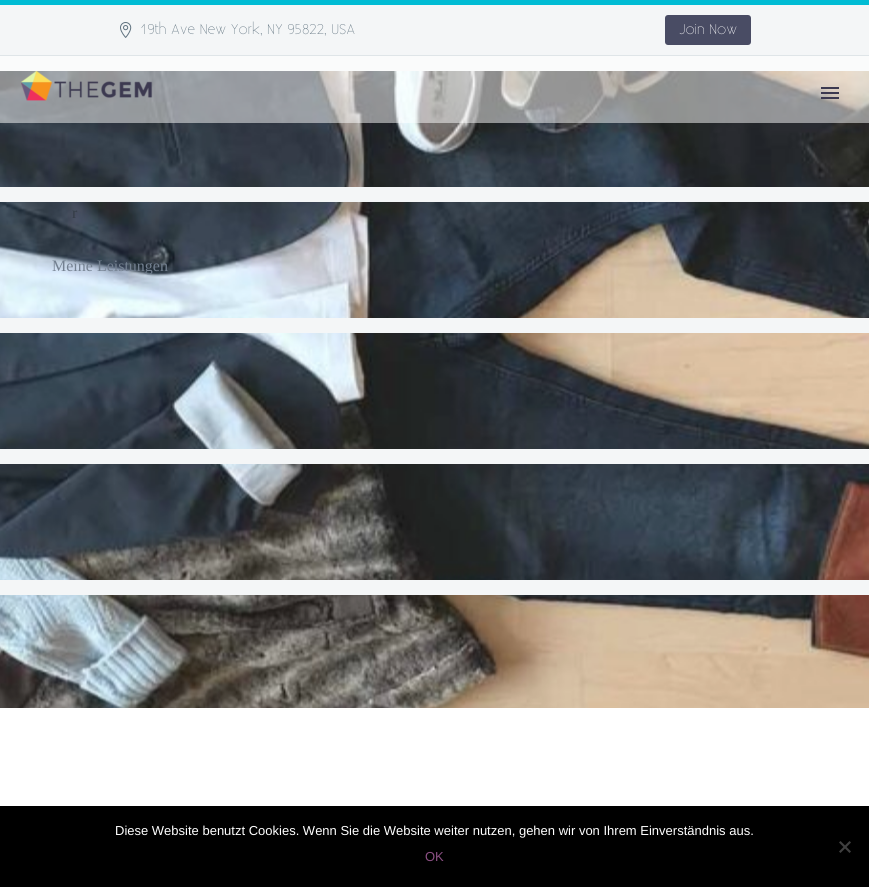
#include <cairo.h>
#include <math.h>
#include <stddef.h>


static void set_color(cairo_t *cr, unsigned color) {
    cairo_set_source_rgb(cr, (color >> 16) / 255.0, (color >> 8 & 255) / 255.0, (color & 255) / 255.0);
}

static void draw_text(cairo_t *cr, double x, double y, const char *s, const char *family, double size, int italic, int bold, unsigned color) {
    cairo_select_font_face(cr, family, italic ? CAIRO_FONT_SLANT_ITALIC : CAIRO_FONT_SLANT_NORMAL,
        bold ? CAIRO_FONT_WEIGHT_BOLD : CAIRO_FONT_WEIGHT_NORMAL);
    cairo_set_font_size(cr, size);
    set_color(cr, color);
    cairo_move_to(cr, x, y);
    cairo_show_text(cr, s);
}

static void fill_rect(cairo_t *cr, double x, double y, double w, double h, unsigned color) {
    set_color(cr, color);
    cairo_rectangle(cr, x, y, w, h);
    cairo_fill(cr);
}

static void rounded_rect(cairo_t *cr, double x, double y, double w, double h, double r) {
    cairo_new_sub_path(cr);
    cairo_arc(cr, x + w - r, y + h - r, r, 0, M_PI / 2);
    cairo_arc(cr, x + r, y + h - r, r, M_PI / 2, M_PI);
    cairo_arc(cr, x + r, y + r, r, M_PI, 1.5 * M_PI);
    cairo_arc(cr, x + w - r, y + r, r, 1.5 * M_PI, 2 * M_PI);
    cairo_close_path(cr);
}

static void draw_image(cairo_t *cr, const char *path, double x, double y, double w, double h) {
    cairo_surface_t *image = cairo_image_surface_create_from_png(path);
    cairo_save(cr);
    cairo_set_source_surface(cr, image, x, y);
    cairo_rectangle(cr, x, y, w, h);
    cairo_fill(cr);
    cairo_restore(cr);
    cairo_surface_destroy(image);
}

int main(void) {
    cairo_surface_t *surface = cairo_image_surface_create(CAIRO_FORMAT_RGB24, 869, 887);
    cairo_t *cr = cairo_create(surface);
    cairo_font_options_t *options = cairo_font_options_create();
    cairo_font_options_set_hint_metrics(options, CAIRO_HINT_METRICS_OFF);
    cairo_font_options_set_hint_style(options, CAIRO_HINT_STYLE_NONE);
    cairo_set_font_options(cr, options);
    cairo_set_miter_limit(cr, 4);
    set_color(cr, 0xFFFFFF);
    cairo_paint(cr);
    fill_rect(cr, 0, 5, 869, 50, 0xF4F6F7);
    fill_rect(cr, 0, 0, 869, 5, 0x00BCD4);
    fill_rect(cr, 0, 55, 869, 1, 0xDFE5E8);
    draw_image(cr, "assets/img1.png", 120, 22, 12, 16);
    draw_text(cr, 140, 34, "19th Ave New York, NY 95822, USA", "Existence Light", 14, 0, 0, 0x5F727F);
    set_color(cr, 0x494C64);
    rounded_rect(cr, 665, 15, 86, 30, 3);
    cairo_fill(cr);
    draw_text(cr, 679, 34, "Join Now", "Existence Light", 14, 0, 0, 0xFFFFFF);
    fill_rect(cr, 0, 56, 869, 652, 0xF4F6F7);
    draw_image(cr, "assets/img2.png", 0, 71, 869, 637);
    cairo_set_source_rgba(cr, 1, 1, 1, 0.5);
    cairo_rectangle(cr, 0, 56, 869, 67);
    cairo_fill(cr);
    draw_image(cr, "assets/img3.png", 21, 71, 132, 30);
    fill_rect(cr, 821, 87, 18, 2, 0x3C3950);
    fill_rect(cr, 821, 92, 18, 2, 0x3C3950);
    fill_rect(cr, 821, 97, 18, 2, 0x3C3950);
    draw_text(cr, 72, 218, "r", "Liberation Serif", 16, 0, 0, 0x343C46);
    draw_text(cr, 52, 271, "Meine Leistungen", "Liberation Serif", 16, 0, 0, 0x748191);
    fill_rect(cr, 0, 806, 869, 81, 0x000000);
    draw_text(cr, 115, 835, "Diese Website benutzt Cookies. Wenn Sie die Website weiter nutzen, gehen wir von Ihrem Einverständnis aus.", "Liberation Sans", 13, 0, 0, 0xFFFFFF);
    set_color(cr, 0x404040);
    cairo_new_path(cr);
    cairo_move_to(cr, 849.5, 841);
    cairo_line_to(cr, 851, 842.5);
    cairo_line_to(cr, 840.5, 853);
    cairo_line_to(cr, 839, 851.5);
    cairo_close_path(cr);
    cairo_fill(cr);
    cairo_new_path(cr);
    cairo_move_to(cr, 839, 842.5);
    cairo_line_to(cr, 840.5, 841);
    cairo_line_to(cr, 851, 851.5);
    cairo_line_to(cr, 849.5, 853);
    cairo_close_path(cr);
    cairo_fill(cr);
    draw_text(cr, 425, 861, "OK", "Liberation Sans", 13, 0, 0, 0x8C5084);
    cairo_surface_write_to_png(surface, "output.png");
    cairo_font_options_destroy(options);
    cairo_destroy(cr);
    cairo_surface_destroy(surface);
    return 0;
}
